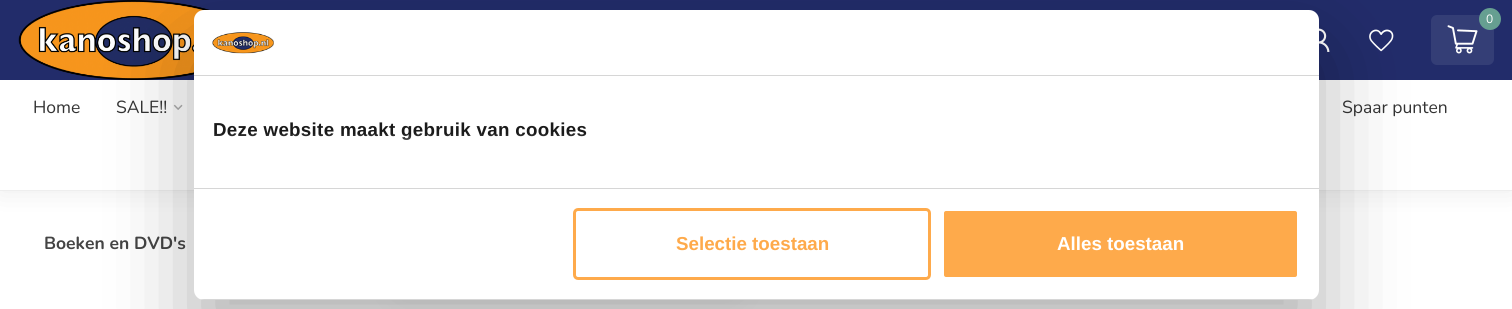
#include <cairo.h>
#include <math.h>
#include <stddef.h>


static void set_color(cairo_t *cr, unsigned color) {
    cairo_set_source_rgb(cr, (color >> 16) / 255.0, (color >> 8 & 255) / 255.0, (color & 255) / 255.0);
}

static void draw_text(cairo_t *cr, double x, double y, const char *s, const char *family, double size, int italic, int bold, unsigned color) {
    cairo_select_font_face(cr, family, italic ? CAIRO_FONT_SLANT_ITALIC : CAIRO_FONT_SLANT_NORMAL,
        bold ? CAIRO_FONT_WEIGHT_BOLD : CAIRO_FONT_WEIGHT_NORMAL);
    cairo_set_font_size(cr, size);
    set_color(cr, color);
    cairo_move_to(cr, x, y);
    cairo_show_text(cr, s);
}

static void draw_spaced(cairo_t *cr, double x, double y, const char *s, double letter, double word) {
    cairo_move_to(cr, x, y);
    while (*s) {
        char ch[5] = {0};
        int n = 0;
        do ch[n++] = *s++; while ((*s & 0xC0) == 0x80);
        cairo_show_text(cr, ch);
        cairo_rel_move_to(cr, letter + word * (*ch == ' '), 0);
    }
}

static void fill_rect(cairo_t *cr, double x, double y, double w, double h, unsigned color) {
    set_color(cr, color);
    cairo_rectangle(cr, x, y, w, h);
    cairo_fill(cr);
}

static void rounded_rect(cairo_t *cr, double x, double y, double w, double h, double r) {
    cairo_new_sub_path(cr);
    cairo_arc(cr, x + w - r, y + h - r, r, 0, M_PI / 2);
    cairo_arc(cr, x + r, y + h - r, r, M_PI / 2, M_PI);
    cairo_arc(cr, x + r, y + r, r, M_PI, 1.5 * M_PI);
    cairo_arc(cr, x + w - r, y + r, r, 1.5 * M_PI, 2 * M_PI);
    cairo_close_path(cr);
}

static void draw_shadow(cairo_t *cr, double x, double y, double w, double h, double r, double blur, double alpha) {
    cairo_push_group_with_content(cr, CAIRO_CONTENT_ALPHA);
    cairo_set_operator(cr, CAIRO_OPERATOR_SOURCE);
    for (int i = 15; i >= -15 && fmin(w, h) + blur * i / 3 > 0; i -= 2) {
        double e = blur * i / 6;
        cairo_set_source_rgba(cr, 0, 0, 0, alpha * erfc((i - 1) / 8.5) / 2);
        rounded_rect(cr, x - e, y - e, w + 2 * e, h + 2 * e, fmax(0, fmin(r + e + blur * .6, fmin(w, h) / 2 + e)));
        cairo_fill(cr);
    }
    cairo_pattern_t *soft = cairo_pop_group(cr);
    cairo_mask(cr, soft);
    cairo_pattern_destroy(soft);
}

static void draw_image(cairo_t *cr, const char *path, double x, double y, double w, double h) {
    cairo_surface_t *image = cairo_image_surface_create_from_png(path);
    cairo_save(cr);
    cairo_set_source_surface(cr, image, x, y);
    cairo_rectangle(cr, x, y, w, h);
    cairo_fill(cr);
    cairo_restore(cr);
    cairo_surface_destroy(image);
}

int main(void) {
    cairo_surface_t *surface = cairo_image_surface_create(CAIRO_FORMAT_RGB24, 1512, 309);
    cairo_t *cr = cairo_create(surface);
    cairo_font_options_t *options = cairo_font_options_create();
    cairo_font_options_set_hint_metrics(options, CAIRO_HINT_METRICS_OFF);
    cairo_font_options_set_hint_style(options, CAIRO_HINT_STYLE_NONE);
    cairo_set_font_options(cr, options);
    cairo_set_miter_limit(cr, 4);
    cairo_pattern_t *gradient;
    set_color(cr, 0xFFFFFF);
    cairo_paint(cr);
    set_color(cr, 0x000000);
    draw_shadow(cr, 0, 80, 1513, 111, 0, 14, 0.08);
    draw_shadow(cr, 404, -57, 327, 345, 0, 19, 0.1);
    fill_rect(cr, 0, 0, 1512, 80, 0x222C6A);
    draw_image(cr, "assets/img1.png", 18, 0, 192, 80);
    set_color(cr, 0x343E76);
    rounded_rect(cr, 1431, 15, 63, 50, 6);
    cairo_fill(cr);
    set_color(cr, 0x669F91);
    cairo_arc(cr, 1490, 19, 11, 0, 2 * M_PI);
    cairo_fill(cr);
    draw_text(cr, 1486, 23, "0", "Nunito", 12, 0, 0, 0xFFFFFF);
    draw_image(cr, "assets/img2.png", 1447, 25, 31, 29);
    draw_image(cr, "assets/img3.png", 1319, 28, 11, 24);
    draw_image(cr, "assets/img4.png", 1369, 29, 25, 23);
    fill_rect(cr, 0, 80, 1512, 110, 0xFFFFFF);
    fill_rect(cr, 0, 190, 1512, 1, 0xEEEEEE);
    draw_text(cr, 33, 113, "Home", "Nunito", 17.5, 0, 0, 0x333333);
    draw_text(cr, 116, 113, "SALE!!", "Nunito", 17.5, 0, 0, 0x333333);
    draw_image(cr, "assets/img5.png", 173, 104, 10, 6);
    draw_text(cr, 1342, 113, "Spaar punten", "Nunito", 17.5, 0, 0, 0x333333);
    draw_text(cr, 44, 249, "Boeken en DVD's", "Nunito", 17.5, 0, 1, 0x444444);
    set_color(cr, 0x000000);
    draw_shadow(cr, 194, 50, 1125, 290, 10, 42.5, 0.3);
    set_color(cr, 0xFFFFFF);
    rounded_rect(cr, 194, 10, 1125, 290, 10);
    cairo_fill(cr);
    fill_rect(cr, 194, 75, 1125, 1, 0xD6D6D6);
    draw_image(cr, "assets/img6.png", 212, 32, 62, 22);
    fill_rect(cr, 194, 188, 1125, 1, 0xD6D6D6);
    cairo_select_font_face(cr, "Liberation Sans", CAIRO_FONT_SLANT_NORMAL, CAIRO_FONT_WEIGHT_BOLD);
    cairo_set_font_size(cr, 18.75);
    set_color(cr, 0x1A1A1A);
    draw_spaced(cr, 213, 136, "Deze website maakt gebruik van cookies", 0.3, 0);
    gradient = cairo_pattern_create_linear(748, 188, 748, 133);
    cairo_pattern_add_color_stop_rgba(gradient, 0, 1, 1, 1, 1);
    cairo_pattern_add_color_stop_rgba(gradient, 0.5, 1, 1, 1, 0.8);
    cairo_pattern_add_color_stop_rgba(gradient, 1, 1, 1, 1, 0);
    cairo_set_source(cr, gradient);
    cairo_pattern_destroy(gradient);
    cairo_rectangle(cr, 213, 134, 373, 6);
    cairo_fill(cr);
    cairo_save(cr);
    rounded_rect(cr, 194, 10, 1125, 290, 10);
    cairo_clip(cr);
    fill_rect(cr, 194, 299, 1125, 1, 0xD6D6D6);
    cairo_restore(cr);
    rounded_rect(cr, 574.5, 209.5, 355, 69, 3.5);
    set_color(cr, 0xFEAA4B);
    cairo_set_line_width(cr, 3);
    cairo_stroke(cr);
    draw_text(cr, 676, 250, "Selectie toestaan", "Liberation Sans", 18.75, 0, 1, 0xFEAA4B);
    rounded_rect(cr, 942.5, 209.5, 356, 69, 3.5);
    cairo_fill_preserve(cr);
    set_color(cr, 0xFFFFFF);
    cairo_stroke(cr);
    draw_text(cr, 1057, 250, "Alles toestaan", "Liberation Sans", 18.75, 0, 1, 0xFFFFFF);
    cairo_surface_write_to_png(surface, "output.png");
    cairo_font_options_destroy(options);
    cairo_destroy(cr);
    cairo_surface_destroy(surface);
    return 0;
}
